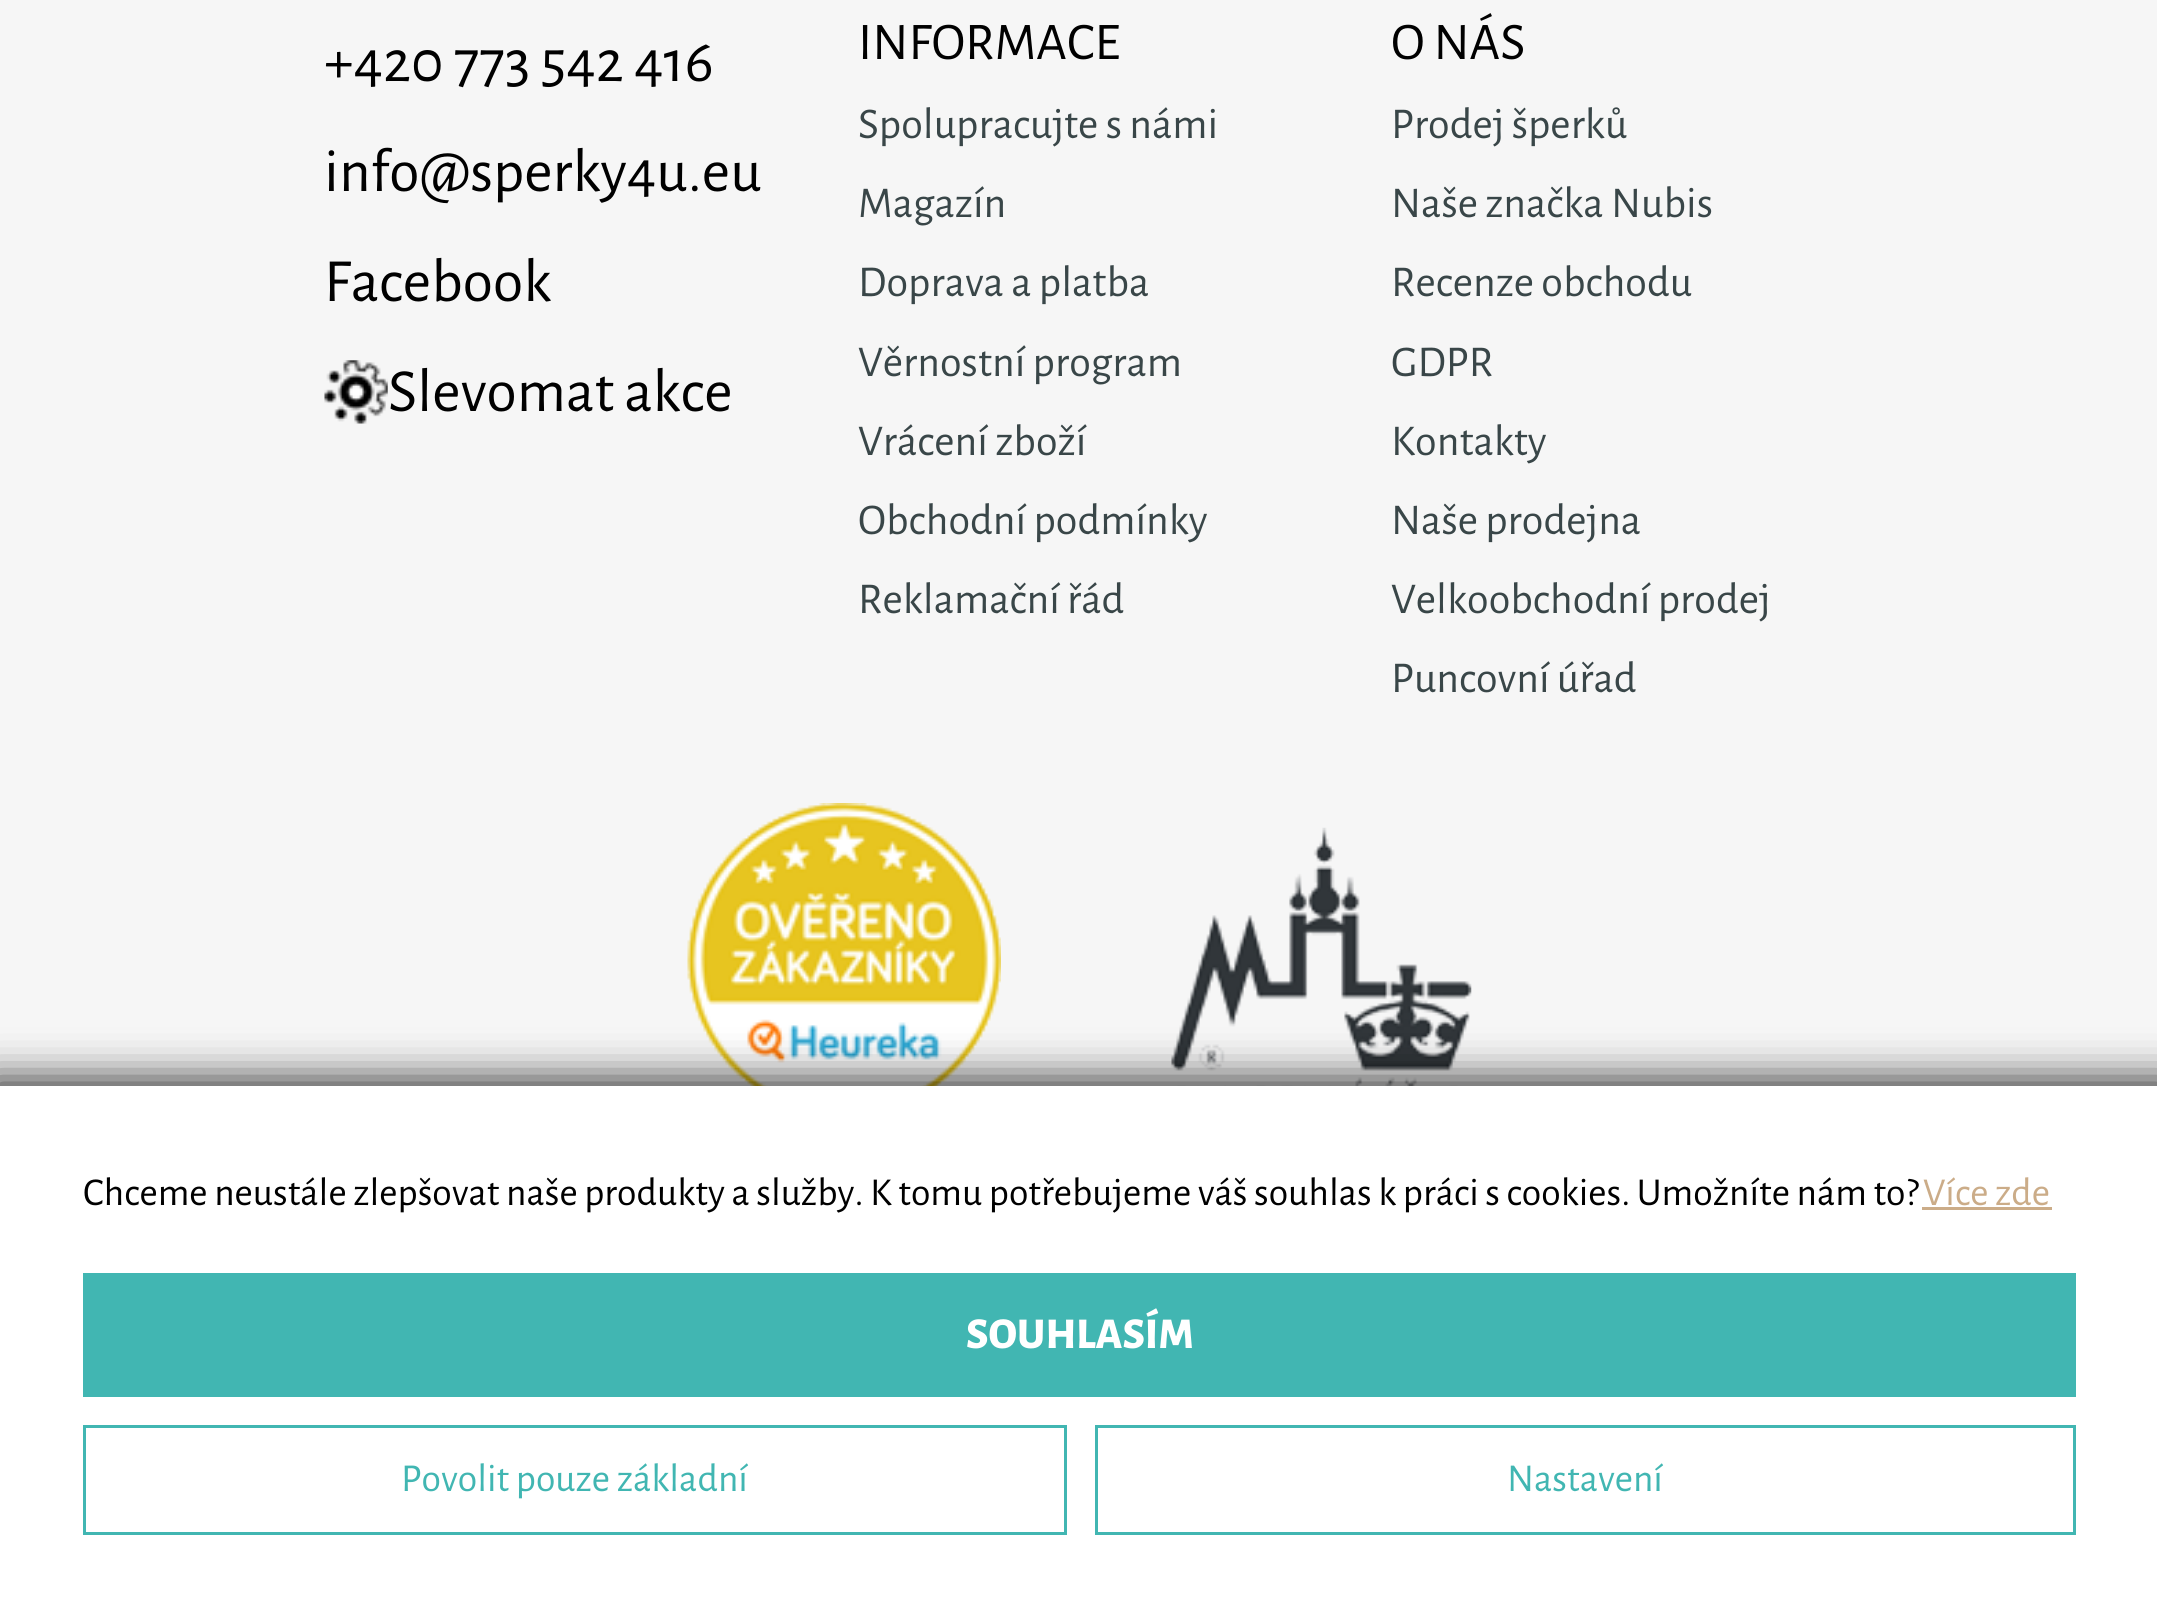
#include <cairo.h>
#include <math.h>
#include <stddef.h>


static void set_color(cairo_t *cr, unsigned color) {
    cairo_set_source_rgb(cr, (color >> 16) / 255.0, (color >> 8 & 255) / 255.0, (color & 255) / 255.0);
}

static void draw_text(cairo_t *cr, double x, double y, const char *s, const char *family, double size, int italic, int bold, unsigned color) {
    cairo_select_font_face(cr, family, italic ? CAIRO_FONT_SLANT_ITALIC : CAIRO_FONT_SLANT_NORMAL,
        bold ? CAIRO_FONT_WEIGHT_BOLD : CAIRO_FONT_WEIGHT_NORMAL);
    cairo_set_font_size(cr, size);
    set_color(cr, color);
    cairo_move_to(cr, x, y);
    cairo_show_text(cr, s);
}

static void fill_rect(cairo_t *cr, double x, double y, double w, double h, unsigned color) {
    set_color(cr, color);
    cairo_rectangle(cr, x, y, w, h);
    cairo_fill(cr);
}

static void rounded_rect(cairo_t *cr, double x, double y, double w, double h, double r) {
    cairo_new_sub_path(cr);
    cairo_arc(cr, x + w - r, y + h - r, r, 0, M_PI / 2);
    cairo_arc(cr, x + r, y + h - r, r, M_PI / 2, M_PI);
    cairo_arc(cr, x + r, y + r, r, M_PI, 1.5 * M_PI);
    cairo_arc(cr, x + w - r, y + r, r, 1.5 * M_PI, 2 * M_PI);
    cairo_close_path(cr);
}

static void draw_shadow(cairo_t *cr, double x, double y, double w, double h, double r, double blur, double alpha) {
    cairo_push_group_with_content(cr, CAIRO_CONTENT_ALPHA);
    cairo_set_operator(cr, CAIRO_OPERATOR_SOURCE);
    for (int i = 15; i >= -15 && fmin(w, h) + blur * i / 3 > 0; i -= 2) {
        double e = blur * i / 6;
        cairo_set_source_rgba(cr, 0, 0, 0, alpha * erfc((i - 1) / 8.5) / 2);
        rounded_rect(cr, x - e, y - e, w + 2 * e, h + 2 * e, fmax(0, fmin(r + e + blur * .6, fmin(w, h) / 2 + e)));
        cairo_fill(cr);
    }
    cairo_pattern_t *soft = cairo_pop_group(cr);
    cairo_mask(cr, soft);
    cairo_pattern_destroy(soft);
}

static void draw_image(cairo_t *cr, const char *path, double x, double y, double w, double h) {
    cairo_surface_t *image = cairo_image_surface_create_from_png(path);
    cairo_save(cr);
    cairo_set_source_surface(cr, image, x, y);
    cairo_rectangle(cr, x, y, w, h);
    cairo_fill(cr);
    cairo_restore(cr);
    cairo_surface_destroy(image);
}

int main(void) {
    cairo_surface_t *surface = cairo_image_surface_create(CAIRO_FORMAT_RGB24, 2157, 1617);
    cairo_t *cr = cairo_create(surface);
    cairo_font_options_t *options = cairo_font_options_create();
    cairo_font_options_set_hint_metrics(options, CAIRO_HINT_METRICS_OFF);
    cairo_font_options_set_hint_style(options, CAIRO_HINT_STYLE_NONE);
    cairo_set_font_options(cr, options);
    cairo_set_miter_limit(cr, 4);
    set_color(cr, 0xF6F6F6);
    cairo_paint(cr);
    draw_text(cr, 324, 81, "+420 773 542 416", "Alegreya Sans", 61.5, 0, 0, 0x000000);
    draw_text(cr, 324, 191, "info@sperky4u.eu", "Alegreya Sans", 61.5, 0, 0, 0x000000);
    draw_text(cr, 324, 301, "Facebook", "Alegreya Sans", 61.5, 0, 0, 0x000000);
    draw_image(cr, "assets/img1.png", 324, 360, 64, 64);
    draw_text(cr, 388, 411, "Slevomat akce", "Alegreya Sans", 61.5, 0, 0, 0x000000);
    draw_text(cr, 858, 59, "INFORMACE", "Alegreya Sans", 53, 0, 0, 0x000000);
    draw_text(cr, 858, 138, "Spolupracujte s námi", "Alegreya Sans", 44, 0, 0, 0x394648);
    draw_text(cr, 858, 217, "Magazín", "Alegreya Sans", 44, 0, 0, 0x394648);
    draw_text(cr, 858, 296, "Doprava a platba", "Alegreya Sans", 44, 0, 0, 0x394648);
    draw_text(cr, 858, 376, "Věrnostní program", "Alegreya Sans", 44, 0, 0, 0x394648);
    draw_text(cr, 858, 455, "Vrácení zboží", "Alegreya Sans", 44, 0, 0, 0x394648);
    draw_text(cr, 858, 534, "Obchodní podmínky", "Alegreya Sans", 44, 0, 0, 0x394648);
    draw_text(cr, 858, 613, "Reklamační řád", "Alegreya Sans", 44, 0, 0, 0x394648);
    draw_text(cr, 1391, 59, "O NÁS", "Alegreya Sans", 53, 0, 0, 0x000000);
    draw_text(cr, 1391, 138, "Prodej šperků", "Alegreya Sans", 44, 0, 0, 0x394648);
    draw_text(cr, 1391, 217, "Naše značka Nubis", "Alegreya Sans", 44, 0, 0, 0x394648);
    draw_text(cr, 1391, 296, "Recenze obchodu", "Alegreya Sans", 44, 0, 0, 0x394648);
    draw_text(cr, 1391, 376, "GDPR", "Alegreya Sans", 44, 0, 0, 0x394648);
    draw_text(cr, 1391, 455, "Kontakty", "Alegreya Sans", 44, 0, 0, 0x394648);
    draw_text(cr, 1391, 534, "Naše prodejna", "Alegreya Sans", 44, 0, 0, 0x394648);
    draw_text(cr, 1391, 613, "Velkoobchodní prodej", "Alegreya Sans", 44, 0, 0, 0x394648);
    draw_text(cr, 1391, 692, "Puncovní úřad", "Alegreya Sans", 44, 0, 0, 0x394648);
    draw_image(cr, "assets/img2.png", 687, 803, 314, 283);
    draw_image(cr, "assets/img3.png", 1171, 827, 301, 259);
    set_color(cr, 0x000000);
    draw_shadow(cr, -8, 1078, 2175, 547, 0, 20.5, 0.75);
    fill_rect(cr, 0, 1086, 2157, 531, 0xFFFFFF);
    draw_text(cr, 83, 1205, "Chceme neustále zlepšovat naše produkty a služby. K tomu potřebujeme váš souhlas k práci s cookies. Umožníte nám to?", "Alegreya Sans", 39.6, 0, 0, 0x000000);
    draw_text(cr, 1923, 1205, "Více zde", "Alegreya Sans", 39.6, 0, 0, 0xCBAC88);
    fill_rect(cr, 1922, 1207, 130, 3, 0xCBAC88);
    fill_rect(cr, 83, 1273, 1993, 124, 0x41B6B2);
    draw_text(cr, 966, 1348, "SOUHLASÍM", "Alegreya Sans ExtraBold", 44, 0, 0, 0xFFFFFF);
    cairo_rectangle(cr, 84.5, 1426.5, 981, 107);
    set_color(cr, 0x41B6B2);
    cairo_set_line_width(cr, 3);
    cairo_stroke(cr);
    draw_text(cr, 401, 1491, "Povolit pouze základní", "Alegreya Sans", 39.6, 0, 0, 0x41B6B2);
    cairo_rectangle(cr, 1096.5, 1426.5, 978, 107);
    cairo_stroke(cr);
    draw_text(cr, 1507, 1491, "Nastavení", "Alegreya Sans", 39.6, 0, 0, 0x41B6B2);
    cairo_surface_write_to_png(surface, "output.png");
    cairo_font_options_destroy(options);
    cairo_destroy(cr);
    cairo_surface_destroy(surface);
    return 0;
}
